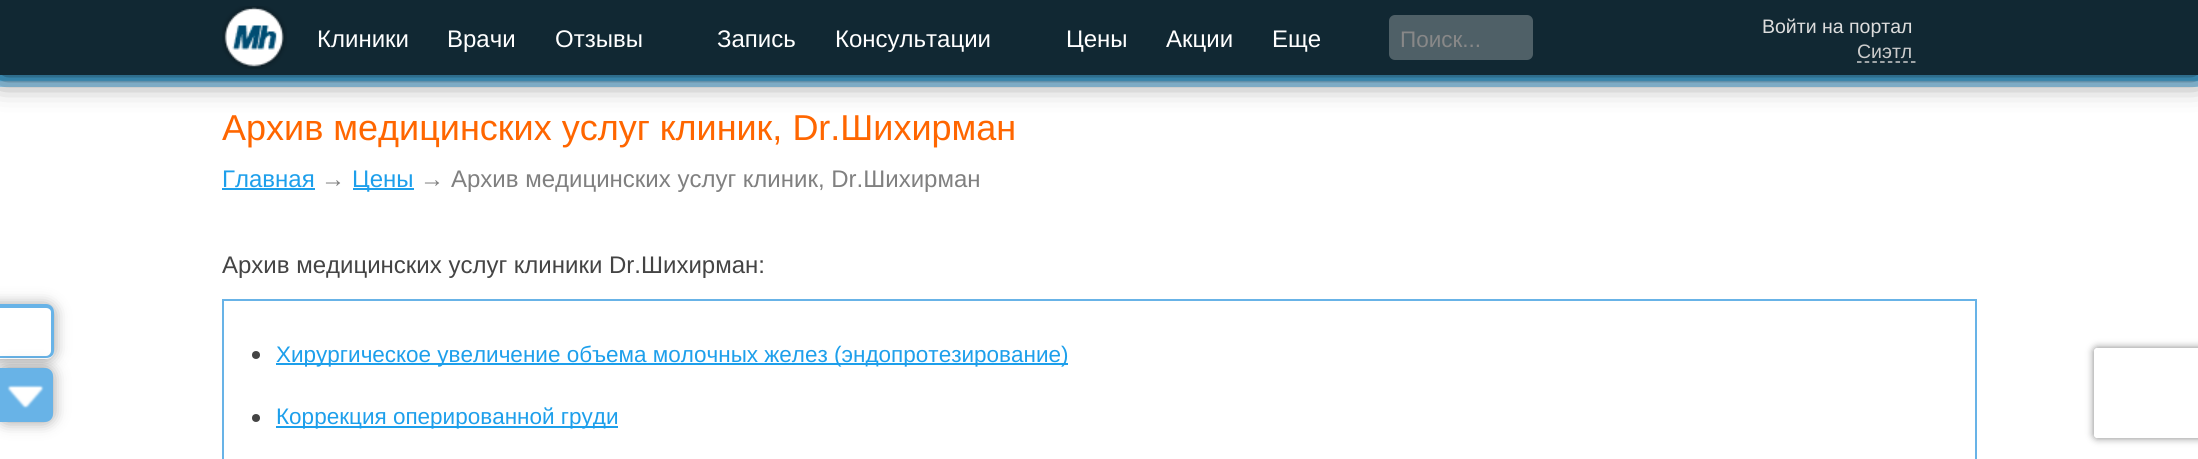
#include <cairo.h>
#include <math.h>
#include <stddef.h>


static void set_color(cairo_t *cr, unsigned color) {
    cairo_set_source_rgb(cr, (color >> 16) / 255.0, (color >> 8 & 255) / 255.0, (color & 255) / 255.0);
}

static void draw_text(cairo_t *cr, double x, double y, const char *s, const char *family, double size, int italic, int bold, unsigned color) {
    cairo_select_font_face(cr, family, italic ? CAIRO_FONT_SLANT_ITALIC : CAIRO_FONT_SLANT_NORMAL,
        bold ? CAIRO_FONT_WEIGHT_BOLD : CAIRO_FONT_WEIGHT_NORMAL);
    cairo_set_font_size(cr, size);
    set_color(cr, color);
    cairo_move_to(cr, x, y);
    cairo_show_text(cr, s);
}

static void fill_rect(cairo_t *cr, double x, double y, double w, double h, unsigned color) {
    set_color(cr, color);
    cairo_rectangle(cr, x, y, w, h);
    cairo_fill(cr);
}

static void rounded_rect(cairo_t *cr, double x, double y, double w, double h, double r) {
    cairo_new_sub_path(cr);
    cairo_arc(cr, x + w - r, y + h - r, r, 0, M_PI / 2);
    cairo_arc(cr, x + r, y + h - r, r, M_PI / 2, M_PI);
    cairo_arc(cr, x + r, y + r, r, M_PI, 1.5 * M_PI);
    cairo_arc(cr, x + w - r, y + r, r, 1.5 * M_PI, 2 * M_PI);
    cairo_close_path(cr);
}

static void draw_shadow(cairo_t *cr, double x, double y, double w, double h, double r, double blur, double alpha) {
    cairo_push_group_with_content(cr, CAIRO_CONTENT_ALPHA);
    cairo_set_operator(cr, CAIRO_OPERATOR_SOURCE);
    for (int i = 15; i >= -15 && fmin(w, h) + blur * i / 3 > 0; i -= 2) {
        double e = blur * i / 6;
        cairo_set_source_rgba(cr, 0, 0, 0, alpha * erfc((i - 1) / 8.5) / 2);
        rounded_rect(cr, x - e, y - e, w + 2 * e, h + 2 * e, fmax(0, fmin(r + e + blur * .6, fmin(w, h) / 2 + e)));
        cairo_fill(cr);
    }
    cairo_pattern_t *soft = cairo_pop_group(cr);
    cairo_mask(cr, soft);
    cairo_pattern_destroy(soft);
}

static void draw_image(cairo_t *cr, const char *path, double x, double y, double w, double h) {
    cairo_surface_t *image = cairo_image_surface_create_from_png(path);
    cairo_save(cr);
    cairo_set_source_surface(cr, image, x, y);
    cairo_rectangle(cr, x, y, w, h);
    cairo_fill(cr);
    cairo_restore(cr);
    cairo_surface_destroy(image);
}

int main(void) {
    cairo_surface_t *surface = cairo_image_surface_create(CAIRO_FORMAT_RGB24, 2198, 459);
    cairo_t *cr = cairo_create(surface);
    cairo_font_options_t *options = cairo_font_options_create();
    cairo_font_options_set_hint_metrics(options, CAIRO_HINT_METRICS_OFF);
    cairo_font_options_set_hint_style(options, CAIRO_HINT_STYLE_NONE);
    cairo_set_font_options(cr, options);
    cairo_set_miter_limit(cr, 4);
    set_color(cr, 0xFFFFFF);
    cairo_paint(cr);
    set_color(cr, 0x000000);
    draw_shadow(cr, -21, 305, 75, 54, 8, 7.5, 0.4);
    set_color(cr, 0xFFFFFF);
    cairo_new_path(cr);
    cairo_move_to(cr, -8, 305);
    cairo_line_to(cr, 46, 305);
    cairo_curve_to(cr, 50.5, 305, 54, 308.5, 54, 313);
    cairo_line_to(cr, 54, 351);
    cairo_curve_to(cr, 54, 355.5, 50.5, 359, 46, 359);
    cairo_line_to(cr, -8, 359);
    cairo_close_path(cr);
    cairo_fill(cr);
    set_color(cr, 0x68B3E7);
    cairo_set_fill_rule(cr, CAIRO_FILL_RULE_EVEN_ODD);
    cairo_new_path(cr);
    cairo_move_to(cr, -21, 304);
    cairo_line_to(cr, 46, 304);
    cairo_curve_to(cr, 51, 304, 54, 308, 54, 312);
    cairo_line_to(cr, 54, 351);
    cairo_curve_to(cr, 54, 355, 51, 358, 46, 358);
    cairo_line_to(cr, -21, 358);
    cairo_close_path(cr);
    cairo_move_to(cr, -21, 308);
    cairo_line_to(cr, 46, 308);
    cairo_curve_to(cr, 49, 308, 51, 310, 51, 312);
    cairo_line_to(cr, 51, 351);
    cairo_curve_to(cr, 51, 353, 49, 356, 46, 356);
    cairo_line_to(cr, -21, 356);
    cairo_close_path(cr);
    cairo_fill(cr);
    draw_image(cr, "assets/img1.png", 0, 75, 2198, 12);
    set_color(cr, 0x000000);
    draw_shadow(cr, 0, 0, 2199, 75, 0, 15, 0.9);
    fill_rect(cr, 0, 0, 2198, 75, 0x112833);
    draw_image(cr, "assets/img2.png", 222, 6, 65, 63);
    draw_text(cr, 317, 47, "Клиники", "Arimo", 24, 0, 0, 0xFFFFFF);
    draw_text(cr, 447, 47, "Врачи", "Arimo", 24, 0, 0, 0xFFFFFF);
    draw_text(cr, 555, 47, "Отзывы", "Arimo", 24, 0, 0, 0xFFFFFF);
    draw_text(cr, 717, 47, "Запись", "Arimo", 24, 0, 0, 0xFFFFFF);
    draw_text(cr, 835, 47, "Консультации", "Arimo", 24, 0, 0, 0xFFFFFF);
    draw_text(cr, 1066, 47, "Цены", "Arimo", 24, 0, 0, 0xFFFFFF);
    draw_text(cr, 1166, 47, "Акции", "Arimo", 24, 0, 0, 0xFFFFFF);
    draw_text(cr, 1272, 47, "Еще", "Arimo", 24, 0, 0, 0xFFFFFF);
    set_color(cr, 0x4F6067);
    rounded_rect(cr, 1389, 15, 144, 45, 6);
    cairo_fill(cr);
    draw_text(cr, 1400, 47, "Поиск...", "Arimo", 22.5, 0, 0, 0x888888);
    draw_text(cr, 1762, 33, "Войти на портал", "Arimo", 19.5, 0, 0, 0xDDDDDD);
    cairo_new_path(cr);
    cairo_move_to(cr, 1857, 62);
    cairo_line_to(cr, 1915.5, 62);
    set_color(cr, 0xCCCCCC);
    cairo_set_line_width(cr, 1.5);
    cairo_set_dash(cr, (double[]){4.5, 3.21}, 2, 0);
    cairo_stroke(cr);
    draw_text(cr, 1857, 58, "Сиэтл", "Arimo", 19.5, 0, 0, 0xCCCCCC);
    draw_text(cr, 222, 140, "Архив медицинских услуг клиник, Dr.Шихирман", "Arimo", 36, 0, 0, 0xFF6600);
    draw_text(cr, 222, 187, "Главная", "Arimo", 24, 0, 0, 0x1D9FEB);
    fill_rect(cr, 222, 188, 93, 2, 0x1D9FEB);
    draw_text(cr, 321, 187, "→", "Liberation Sans", 24, 0, 0, 0x808080);
    fill_rect(cr, 353, 188, 61, 2, 0x1D9FEB);
    draw_text(cr, 352, 187, "Цены", "Arimo", 24, 0, 0, 0x1D9FEB);
    draw_text(cr, 420, 187, "→", "Liberation Sans", 24, 0, 0, 0x808080);
    draw_text(cr, 451, 187, "Архив медицинских услуг клиник, Dr.Шихирман", "Arimo", 24, 0, 0, 0x808080);
    draw_text(cr, 222, 273, "Архив медицинских услуг клиники Dr.Шихирман:", "Arimo", 24, 0, 0, 0x444444);
    cairo_rectangle(cr, 223, 300, 1753, 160);
    set_color(cr, 0x68B3E7);
    cairo_set_line_width(cr, 2);
    cairo_set_dash(cr, NULL, 0, 0);
    cairo_stroke(cr);
    set_color(cr, 0x444444);
    cairo_arc(cr, 256, 355, 4, 0, 2 * M_PI);
    cairo_fill(cr);
    fill_rect(cr, 276, 363, 792, 2, 0x1D9FEB);
    draw_text(cr, 276, 362, "Хирургическое увеличение объема молочных желез (эндопротезирование)", "Arimo", 22.5, 0, 0, 0x1D9FEB);
    set_color(cr, 0x444444);
    cairo_new_path(cr);
    cairo_arc(cr, 256, 418, 4, 0, 2 * M_PI);
    cairo_fill(cr);
    fill_rect(cr, 276, 426, 342, 2, 0x1D9FEB);
    draw_text(cr, 276, 424, "Коррекция оперированной груди", "Arimo", 22.5, 0, 0, 0x1D9FEB);
    cairo_save(cr);
    cairo_new_path(cr);
    cairo_move_to(cr, 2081, 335);
    cairo_line_to(cr, 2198, 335);
    cairo_line_to(cr, 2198, 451);
    cairo_line_to(cr, 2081, 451);
    cairo_close_path(cr);
    cairo_move_to(cr, 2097, 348);
    cairo_line_to(cr, 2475, 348);
    cairo_curve_to(cr, 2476.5, 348, 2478, 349.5, 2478, 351);
    cairo_line_to(cr, 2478, 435);
    cairo_curve_to(cr, 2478, 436.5, 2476.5, 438, 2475, 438);
    cairo_line_to(cr, 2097, 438);
    cairo_curve_to(cr, 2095.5, 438, 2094, 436.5, 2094, 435);
    cairo_line_to(cr, 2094, 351);
    cairo_curve_to(cr, 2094, 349.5, 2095.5, 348, 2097, 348);
    cairo_close_path(cr);
    cairo_clip(cr);
    set_color(cr, 0x808080);
    draw_shadow(cr, 2094, 348, 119, 90, 3, 4, 1);
    cairo_restore(cr);
    set_color(cr, 0x000000);
    draw_shadow(cr, -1, 368, 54, 54, 8, 7.5, 0.4);
    set_color(cr, 0x68B3E7);
    cairo_new_path(cr);
    cairo_move_to(cr, -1, 368);
    cairo_line_to(cr, 45, 368);
    cairo_curve_to(cr, 49.5, 368, 53, 371.5, 53, 376);
    cairo_line_to(cr, 53, 414);
    cairo_curve_to(cr, 53, 418.5, 49.5, 422, 45, 422);
    cairo_line_to(cr, -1, 422);
    cairo_close_path(cr);
    cairo_fill(cr);
    draw_image(cr, "assets/img3.png", 7, 385, 37, 24);
    cairo_surface_write_to_png(surface, "output.png");
    cairo_font_options_destroy(options);
    cairo_destroy(cr);
    cairo_surface_destroy(surface);
    return 0;
}
